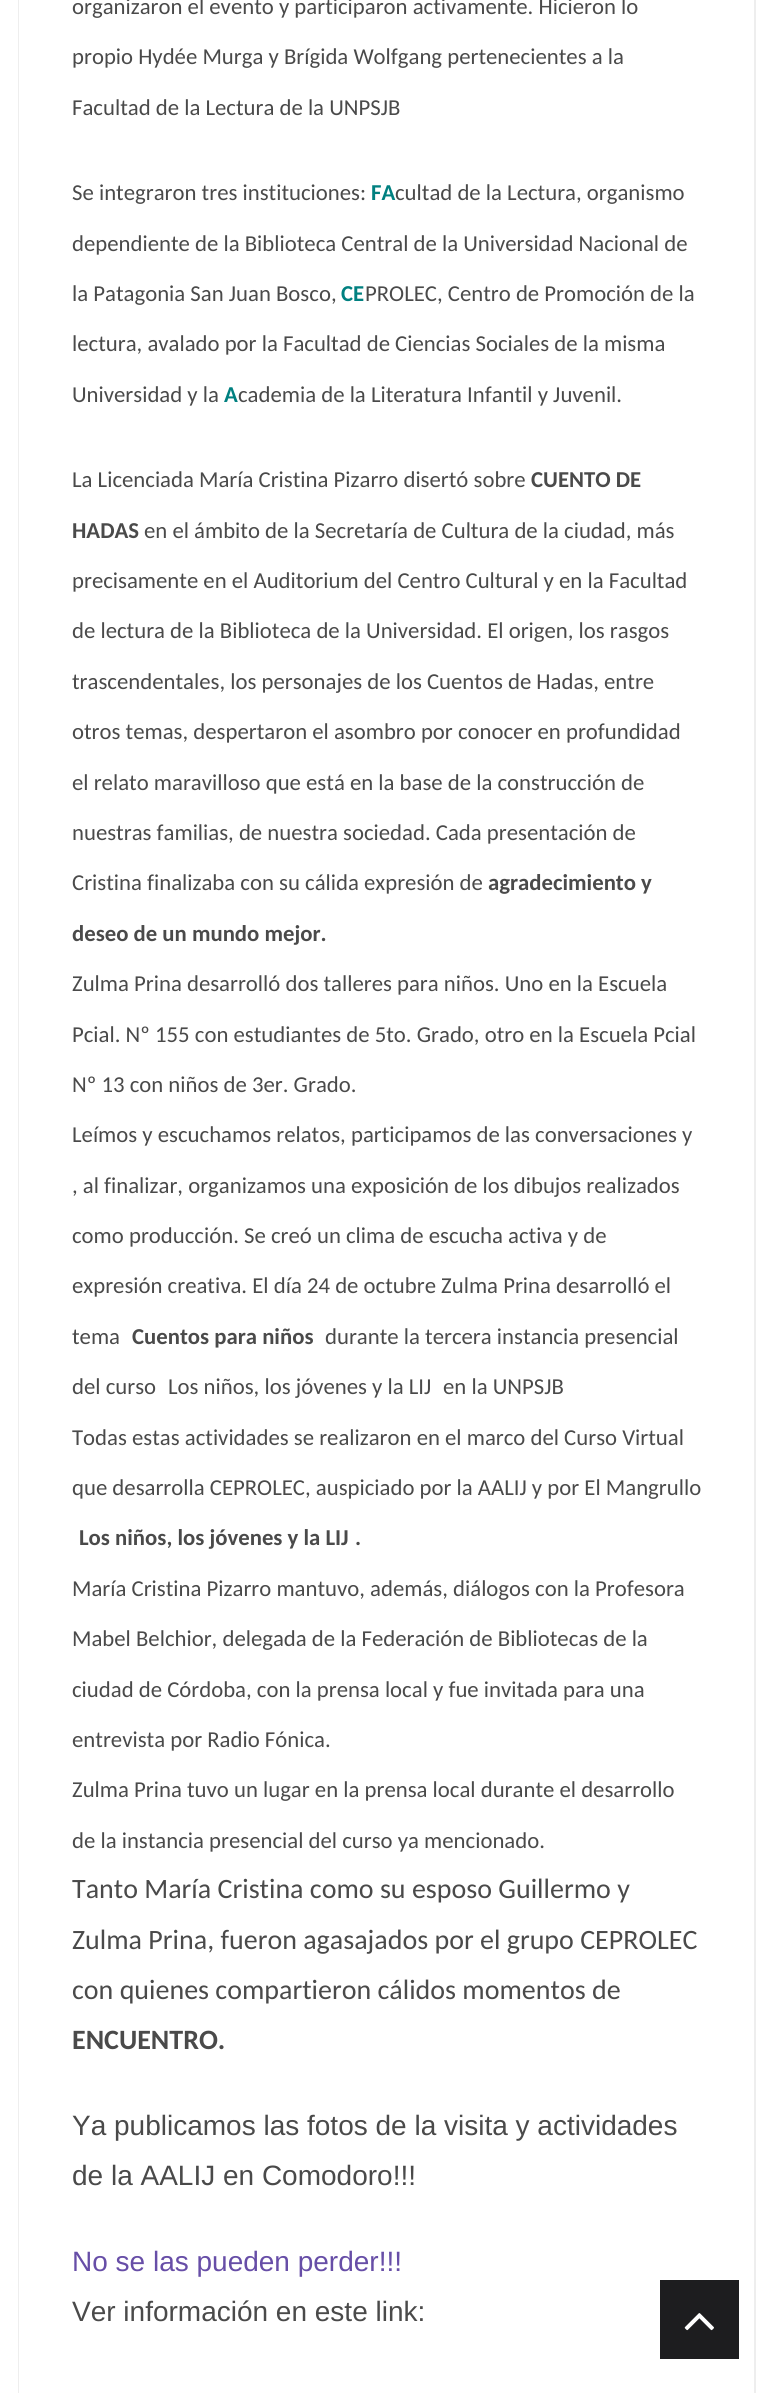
#include <cairo.h>
#include <math.h>
#include <stddef.h>


static void set_color(cairo_t *cr, unsigned color) {
    cairo_set_source_rgb(cr, (color >> 16) / 255.0, (color >> 8 & 255) / 255.0, (color & 255) / 255.0);
}

static void draw_text(cairo_t *cr, double x, double y, const char *s, const char *family, double size, int italic, int bold, unsigned color) {
    cairo_select_font_face(cr, family, italic ? CAIRO_FONT_SLANT_ITALIC : CAIRO_FONT_SLANT_NORMAL,
        bold ? CAIRO_FONT_WEIGHT_BOLD : CAIRO_FONT_WEIGHT_NORMAL);
    cairo_set_font_size(cr, size);
    set_color(cr, color);
    cairo_move_to(cr, x, y);
    cairo_show_text(cr, s);
}

static void fill_rect(cairo_t *cr, double x, double y, double w, double h, unsigned color) {
    set_color(cr, color);
    cairo_rectangle(cr, x, y, w, h);
    cairo_fill(cr);
}

static void draw_image(cairo_t *cr, const char *path, double x, double y, double w, double h) {
    cairo_surface_t *image = cairo_image_surface_create_from_png(path);
    cairo_save(cr);
    cairo_set_source_surface(cr, image, x, y);
    cairo_rectangle(cr, x, y, w, h);
    cairo_fill(cr);
    cairo_restore(cr);
    cairo_surface_destroy(image);
}

int main(void) {
    cairo_surface_t *surface = cairo_image_surface_create(CAIRO_FORMAT_RGB24, 772, 2393);
    cairo_t *cr = cairo_create(surface);
    cairo_font_options_t *options = cairo_font_options_create();
    cairo_font_options_set_hint_metrics(options, CAIRO_HINT_METRICS_OFF);
    cairo_font_options_set_hint_style(options, CAIRO_HINT_STYLE_NONE);
    cairo_set_font_options(cr, options);
    cairo_set_miter_limit(cr, 4);
    set_color(cr, 0xFFFFFF);
    cairo_paint(cr);
    set_color(cr, 0xEEEEEE);
    cairo_set_fill_rule(cr, CAIRO_FILL_RULE_EVEN_ODD);
    cairo_new_path(cr);
    cairo_move_to(cr, 18, -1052);
    cairo_line_to(cr, 756, -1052);
    cairo_line_to(cr, 756, 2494);
    cairo_curve_to(cr, 756, 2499, 752, 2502, 747, 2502);
    cairo_line_to(cr, 26, 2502);
    cairo_curve_to(cr, 21, 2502, 18, 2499, 18, 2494);
    cairo_close_path(cr);
    cairo_move_to(cr, 19, -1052);
    cairo_line_to(cr, 754, -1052);
    cairo_line_to(cr, 754, 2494);
    cairo_curve_to(cr, 754, 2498, 751, 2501, 747, 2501);
    cairo_line_to(cr, 26, 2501);
    cairo_curve_to(cr, 22, 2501, 19, 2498, 19, 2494);
    cairo_close_path(cr);
    cairo_fill(cr);
    draw_text(cr, 72, 14, "organizaron el evento y participaron activamente. Hicieron lo", "Carlito", 22.75, 0, 0, 0x4A4A4A);
    draw_text(cr, 72, 64, "propio Hydée Murga y Brígida Wolfgang pertenecientes a la", "Carlito", 22.75, 0, 0, 0x4A4A4A);
    draw_text(cr, 72, 115, "Facultad de la Lectura de la UNPSJB", "Carlito", 22.75, 0, 0, 0x4A4A4A);
    draw_text(cr, 72, 200, "Se integraron tres instituciones:", "Carlito", 22.75, 0, 0, 0x4A4A4A);
    draw_text(cr, 371, 200, "FA", "Carlito", 22.75, 0, 1, 0x008080);
    draw_text(cr, 395, 200, "cultad de la Lectura, organismo", "Carlito", 22.75, 0, 0, 0x4A4A4A);
    draw_text(cr, 72, 251, "dependiente de la Biblioteca Central de la Universidad Nacional de", "Carlito", 22.75, 0, 0, 0x4A4A4A);
    draw_text(cr, 72, 301, "la Patagonia San Juan Bosco,", "Carlito", 22.75, 0, 0, 0x4A4A4A);
    draw_text(cr, 341, 301, "CE", "Carlito", 22.75, 0, 1, 0x008080);
    draw_text(cr, 365, 301, "PROLEC, Centro de Promoción de la", "Carlito", 22.75, 0, 0, 0x4A4A4A);
    draw_text(cr, 72, 351, "lectura, avalado por la Facultad de Ciencias Sociales de la misma", "Carlito", 22.75, 0, 0, 0x4A4A4A);
    draw_text(cr, 72, 402, "Universidad y la", "Carlito", 22.75, 0, 0, 0x4A4A4A);
    draw_text(cr, 224, 402, "A", "Carlito", 22.75, 0, 1, 0x008080);
    draw_text(cr, 238, 402, "cademia de la Literatura Infantil y Juvenil.", "Carlito", 22.75, 0, 0, 0x4A4A4A);
    draw_text(cr, 72, 487, "La Licenciada María Cristina Pizarro disertó sobre", "Carlito", 22.75, 0, 0, 0x4A4A4A);
    draw_text(cr, 531, 487, "CUENTO DE", "Carlito", 22.75, 0, 1, 0x4A4A4A);
    draw_text(cr, 72, 538, "HADAS", "Carlito", 22.75, 0, 1, 0x4A4A4A);
    draw_text(cr, 144, 538, "en el ámbito de la Secretaría de Cultura de la ciudad, más", "Carlito", 22.75, 0, 0, 0x4A4A4A);
    draw_text(cr, 72, 588, "precisamente en el Auditorium del Centro Cultural y en la Facultad", "Carlito", 22.75, 0, 0, 0x4A4A4A);
    draw_text(cr, 72, 638, "de lectura de la Biblioteca de la Universidad. El origen, los rasgos", "Carlito", 22.75, 0, 0, 0x4A4A4A);
    draw_text(cr, 72, 689, "trascendentales, los personajes de los Cuentos de Hadas, entre", "Carlito", 22.75, 0, 0, 0x4A4A4A);
    draw_text(cr, 72, 739, "otros temas, despertaron el asombro por conocer en profundidad", "Carlito", 22.75, 0, 0, 0x4A4A4A);
    draw_text(cr, 72, 790, "el relato maravilloso que está en la base de la construcción de", "Carlito", 22.75, 0, 0, 0x4A4A4A);
    draw_text(cr, 72, 840, "nuestras familias, de nuestra sociedad. Cada presentación de", "Carlito", 22.75, 0, 0, 0x4A4A4A);
    draw_text(cr, 72, 890, "Cristina finalizaba con su cálida expresión de", "Carlito", 22.75, 0, 0, 0x4A4A4A);
    draw_text(cr, 488, 890, "agradecimiento y", "Carlito", 22.75, 0, 1, 0x4A4A4A);
    draw_text(cr, 72, 941, "deseo de un mundo mejor.", "Carlito", 22.75, 0, 1, 0x4A4A4A);
    draw_text(cr, 72, 991, "Zulma Prina desarrolló dos talleres para niños. Uno en la Escuela", "Carlito", 22.75, 0, 0, 0x4A4A4A);
    draw_text(cr, 72, 1042, "Pcial. Nº 155 con estudiantes de 5to. Grado, otro en la Escuela Pcial", "Carlito", 22.75, 0, 0, 0x4A4A4A);
    draw_text(cr, 72, 1092, "Nº 13 con niños de 3er. Grado.", "Carlito", 22.75, 0, 0, 0x4A4A4A);
    draw_text(cr, 72, 1142, "Leímos y escuchamos relatos, participamos de las conversaciones y", "Carlito", 22.75, 0, 0, 0x4A4A4A);
    draw_text(cr, 72, 1193, ", al finalizar, organizamos una exposición de los dibujos realizados", "Carlito", 22.75, 0, 0, 0x4A4A4A);
    draw_text(cr, 72, 1243, "como producción. Se creó un clima de escucha activa y de", "Carlito", 22.75, 0, 0, 0x4A4A4A);
    draw_text(cr, 72, 1293, "expresión creativa. El día 24 de octubre Zulma Prina desarrolló el", "Carlito", 22.75, 0, 0, 0x4A4A4A);
    draw_text(cr, 72, 1344, "tema", "Carlito", 22.75, 0, 0, 0x4A4A4A);
    draw_text(cr, 132, 1344, "Cuentos para niños", "Carlito", 22.75, 0, 1, 0x4A4A4A);
    draw_text(cr, 325, 1344, "durante la tercera instancia presencial", "Carlito", 22.75, 0, 0, 0x4A4A4A);
    draw_text(cr, 72, 1394, "del curso", "Carlito", 22.75, 0, 0, 0x4A4A4A);
    draw_text(cr, 168, 1394, "Los niños, los jóvenes y la LIJ", "Carlito", 22.75, 0, 0, 0x4A4A4A);
    draw_text(cr, 443, 1394, "en la UNPSJB", "Carlito", 22.75, 0, 0, 0x4A4A4A);
    draw_text(cr, 72, 1445, "Todas estas actividades se realizaron en el marco del Curso Virtual", "Carlito", 22.75, 0, 0, 0x4A4A4A);
    draw_text(cr, 72, 1495, "que desarrolla CEPROLEC, auspiciado por la AALIJ y por El Mangrullo", "Carlito", 22.75, 0, 0, 0x4A4A4A);
    draw_text(cr, 79, 1545, "Los niños, los jóvenes y la LIJ", "Carlito", 22.75, 0, 1, 0x4A4A4A);
    draw_text(cr, 355, 1545, ".", "Carlito", 22.75, 0, 1, 0x4A4A4A);
    draw_text(cr, 72, 1596, "María Cristina Pizarro mantuvo, además, diálogos con la Profesora", "Carlito", 22.75, 0, 0, 0x4A4A4A);
    draw_text(cr, 72, 1646, "Mabel Belchior, delegada de la Federación de Bibliotecas de la", "Carlito", 22.75, 0, 0, 0x4A4A4A);
    draw_text(cr, 72, 1697, "ciudad de Córdoba, con la prensa local y fue invitada para una", "Carlito", 22.75, 0, 0, 0x4A4A4A);
    draw_text(cr, 72, 1747, "entrevista por Radio Fónica.", "Carlito", 22.75, 0, 0, 0x4A4A4A);
    draw_text(cr, 72, 1797, "Zulma Prina tuvo un lugar en la prensa local durante el desarrollo", "Carlito", 22.75, 0, 0, 0x4A4A4A);
    draw_text(cr, 72, 1848, "de la instancia presencial del curso ya mencionado.", "Carlito", 22.75, 0, 0, 0x4A4A4A);
    draw_text(cr, 72, 1898, "Tanto María Cristina como su esposo Guillermo y", "Carlito", 28, 0, 0, 0x4A4A4A);
    draw_text(cr, 72, 1949, "Zulma Prina, fueron agasajados por el grupo CEPROLEC", "Carlito", 28, 0, 0, 0x4A4A4A);
    draw_text(cr, 72, 1999, "con quienes compartieron cálidos momentos de", "Carlito", 28, 0, 0, 0x4A4A4A);
    draw_text(cr, 72, 2049, "ENCUENTRO.", "Carlito", 28, 0, 1, 0x4A4A4A);
    draw_text(cr, 72, 2135, "Ya publicamos las fotos de la visita y actividades", "Liberation Sans", 28, 0, 0, 0x4A4A4A);
    draw_text(cr, 72, 2185, "de la AALIJ en Comodoro!!!", "Liberation Sans", 28, 0, 0, 0x4A4A4A);
    draw_text(cr, 72, 2271, "No se las pueden perder!!!", "Liberation Sans", 28, 0, 0, 0x674EA7);
    draw_text(cr, 72, 2321, "Ver información en este link:", "Liberation Sans", 28, 0, 0, 0x4A4A4A);
    fill_rect(cr, 660, 2280, 79, 79, 0x1D1D1F);
    draw_image(cr, "assets/img1.png", 684, 2313, 30, 18);
    cairo_surface_write_to_png(surface, "output.png");
    cairo_font_options_destroy(options);
    cairo_destroy(cr);
    cairo_surface_destroy(surface);
    return 0;
}
